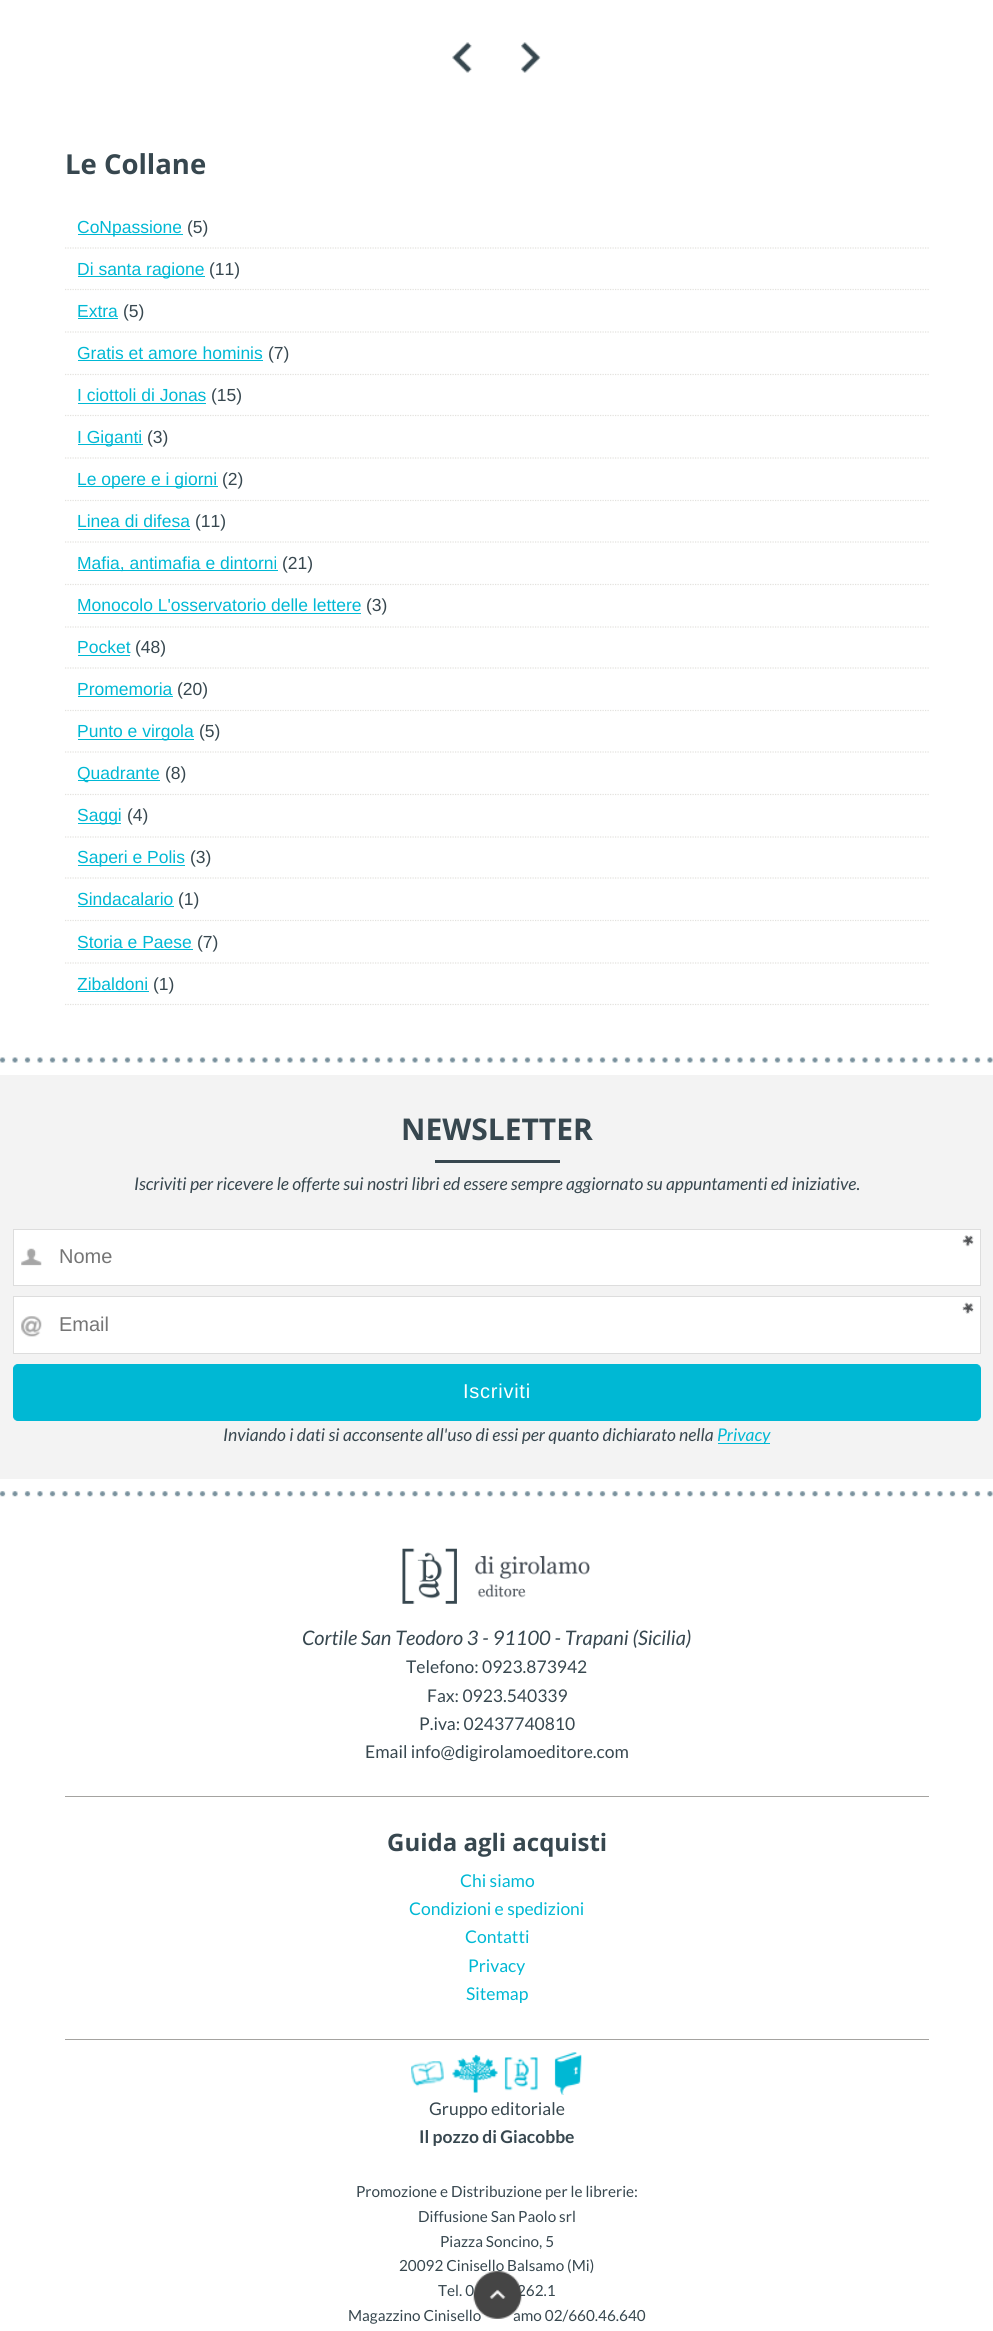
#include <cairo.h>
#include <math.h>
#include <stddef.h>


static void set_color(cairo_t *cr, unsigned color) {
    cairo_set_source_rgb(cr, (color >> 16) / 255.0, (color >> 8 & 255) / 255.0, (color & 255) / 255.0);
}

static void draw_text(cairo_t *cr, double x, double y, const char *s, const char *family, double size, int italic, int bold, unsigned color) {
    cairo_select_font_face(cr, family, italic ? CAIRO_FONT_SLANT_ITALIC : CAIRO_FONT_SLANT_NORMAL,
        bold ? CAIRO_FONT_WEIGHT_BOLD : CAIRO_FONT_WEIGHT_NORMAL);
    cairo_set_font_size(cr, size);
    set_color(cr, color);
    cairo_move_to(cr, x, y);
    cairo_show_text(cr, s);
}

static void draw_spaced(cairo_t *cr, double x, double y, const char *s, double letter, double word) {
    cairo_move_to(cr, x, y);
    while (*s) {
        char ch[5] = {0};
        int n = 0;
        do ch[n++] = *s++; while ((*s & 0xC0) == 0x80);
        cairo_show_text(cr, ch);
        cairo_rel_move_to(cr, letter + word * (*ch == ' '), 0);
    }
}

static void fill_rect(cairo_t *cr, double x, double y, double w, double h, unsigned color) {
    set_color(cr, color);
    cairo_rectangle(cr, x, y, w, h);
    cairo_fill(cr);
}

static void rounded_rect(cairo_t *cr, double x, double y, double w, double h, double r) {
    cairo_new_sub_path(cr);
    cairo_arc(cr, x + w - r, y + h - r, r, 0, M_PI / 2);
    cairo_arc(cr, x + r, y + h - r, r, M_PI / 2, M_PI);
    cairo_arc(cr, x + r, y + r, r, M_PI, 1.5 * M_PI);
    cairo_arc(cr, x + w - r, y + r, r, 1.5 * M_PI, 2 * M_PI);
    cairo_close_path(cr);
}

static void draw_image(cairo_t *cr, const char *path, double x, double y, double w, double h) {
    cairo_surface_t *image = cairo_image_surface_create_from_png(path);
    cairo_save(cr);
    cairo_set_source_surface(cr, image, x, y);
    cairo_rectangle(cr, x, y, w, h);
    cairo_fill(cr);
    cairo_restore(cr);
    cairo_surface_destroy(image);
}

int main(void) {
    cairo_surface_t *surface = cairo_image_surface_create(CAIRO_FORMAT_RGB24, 993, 2331);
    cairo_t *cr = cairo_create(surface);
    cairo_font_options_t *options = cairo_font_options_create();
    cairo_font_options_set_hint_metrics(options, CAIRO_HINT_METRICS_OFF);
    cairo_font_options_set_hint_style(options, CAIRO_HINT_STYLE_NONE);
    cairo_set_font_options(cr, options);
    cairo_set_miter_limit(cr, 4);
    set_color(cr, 0xF3F3F3);
    cairo_paint(cr);
    fill_rect(cr, 0, 0, 993, 1075, 0xFFFFFF);
    draw_image(cr, "assets/img1.png", 452, 42, 20, 31);
    draw_image(cr, "assets/img2.png", 521, 42, 20, 31);
    draw_text(cr, 65, 174, "Le Collane", "Open Sans", 27.5, 0, 1, 0x37474F);
    cairo_new_path(cr);
    cairo_move_to(cr, 65, 248);
    cairo_line_to(cr, 929, 248);
    set_color(cr, 0xE3E2DE);
    cairo_set_line_width(cr, 1.2);
    cairo_set_dash(cr, (double[]){1.25, 1.25}, 2, 0);
    cairo_stroke(cr);
    fill_rect(cr, 78, 234, 105, 1, 0x00B8D4);
    draw_text(cr, 77, 233, "CoNpassione", "Liberation Sans", 17.5, 0, 0, 0x00B8D4);
    draw_text(cr, 187, 233, "(5)", "Liberation Sans", 17.5, 0, 0, 0x37474F);
    cairo_new_path(cr);
    cairo_move_to(cr, 65, 289.5);
    cairo_line_to(cr, 929, 289.5);
    set_color(cr, 0xE3E2DE);
    cairo_stroke(cr);
    fill_rect(cr, 78, 276, 127, 1, 0x00B8D4);
    draw_text(cr, 77, 275, "Di santa ragione", "Liberation Sans", 17.5, 0, 0, 0x00B8D4);
    draw_text(cr, 209, 275, "(11)", "Liberation Sans", 17.5, 0, 0, 0x37474F);
    cairo_new_path(cr);
    cairo_move_to(cr, 65, 332);
    cairo_line_to(cr, 929, 332);
    set_color(cr, 0xE3E2DE);
    cairo_stroke(cr);
    draw_text(cr, 77, 317, "Extra", "Liberation Sans", 17.5, 0, 0, 0x00B8D4);
    fill_rect(cr, 78, 318, 40, 1, 0x00B8D4);
    draw_text(cr, 123, 317, "(5)", "Liberation Sans", 17.5, 0, 0, 0x37474F);
    cairo_new_path(cr);
    cairo_move_to(cr, 65, 374.5);
    cairo_line_to(cr, 929, 374.5);
    set_color(cr, 0xE3E2DE);
    cairo_stroke(cr);
    draw_text(cr, 77, 359, "Gratis et amore hominis", "Liberation Sans", 17.5, 0, 0, 0x00B8D4);
    fill_rect(cr, 78, 360, 185, 1, 0x00B8D4);
    draw_text(cr, 268, 359, "(7)", "Liberation Sans", 17.5, 0, 0, 0x37474F);
    cairo_new_path(cr);
    cairo_move_to(cr, 65, 415.5);
    cairo_line_to(cr, 929, 415.5);
    set_color(cr, 0xE3E2DE);
    cairo_stroke(cr);
    draw_text(cr, 77, 401, "I ciottoli di Jonas", "Liberation Sans", 17.5, 0, 0, 0x00B8D4);
    fill_rect(cr, 78, 403, 128, 1, 0x00B8D4);
    draw_text(cr, 211, 401, "(15)", "Liberation Sans", 17.5, 0, 0, 0x37474F);
    cairo_new_path(cr);
    cairo_move_to(cr, 65, 458);
    cairo_line_to(cr, 929, 458);
    set_color(cr, 0xE3E2DE);
    cairo_stroke(cr);
    fill_rect(cr, 78, 444, 65, 1, 0x00B8D4);
    draw_text(cr, 77, 443, "I Giganti", "Liberation Sans", 17.5, 0, 0, 0x00B8D4);
    draw_text(cr, 147, 443, "(3)", "Liberation Sans", 17.5, 0, 0, 0x37474F);
    cairo_new_path(cr);
    cairo_move_to(cr, 65, 500.5);
    cairo_line_to(cr, 929, 500.5);
    set_color(cr, 0xE3E2DE);
    cairo_stroke(cr);
    fill_rect(cr, 78, 486, 140, 1, 0x00B8D4);
    draw_text(cr, 77, 485, "Le opere e i giorni", "Liberation Sans", 17.5, 0, 0, 0x00B8D4);
    draw_text(cr, 222, 485, "(2)", "Liberation Sans", 17.5, 0, 0, 0x37474F);
    cairo_new_path(cr);
    cairo_move_to(cr, 65, 542);
    cairo_line_to(cr, 929, 542);
    set_color(cr, 0xE3E2DE);
    cairo_stroke(cr);
    draw_text(cr, 77, 527, "Linea di difesa", "Liberation Sans", 17.5, 0, 0, 0x00B8D4);
    fill_rect(cr, 78, 529, 112, 1, 0x00B8D4);
    draw_text(cr, 195, 527, "(11)", "Liberation Sans", 17.5, 0, 0, 0x37474F);
    cairo_new_path(cr);
    cairo_move_to(cr, 65, 584.5);
    cairo_line_to(cr, 929, 584.5);
    set_color(cr, 0xE3E2DE);
    cairo_stroke(cr);
    fill_rect(cr, 78, 570, 200, 1, 0x00B8D4);
    draw_text(cr, 77, 569, "Mafia, antimafia e dintorni", "Liberation Sans", 17.5, 0, 0, 0x00B8D4);
    draw_text(cr, 282, 569, "(21)", "Liberation Sans", 17.5, 0, 0, 0x37474F);
    cairo_new_path(cr);
    cairo_move_to(cr, 65, 627);
    cairo_line_to(cr, 929, 627);
    set_color(cr, 0xE3E2DE);
    cairo_stroke(cr);
    draw_text(cr, 77, 611, "Monocolo L'osservatorio delle lettere", "Liberation Sans", 17.5, 0, 0, 0x00B8D4);
    fill_rect(cr, 78, 613, 283, 1, 0x00B8D4);
    draw_text(cr, 366, 611, "(3)", "Liberation Sans", 17.5, 0, 0, 0x37474F);
    cairo_new_path(cr);
    cairo_move_to(cr, 65, 668);
    cairo_line_to(cr, 929, 668);
    set_color(cr, 0xE3E2DE);
    cairo_stroke(cr);
    draw_text(cr, 77, 653, "Pocket", "Liberation Sans", 17.5, 0, 0, 0x00B8D4);
    fill_rect(cr, 78, 655, 52, 1, 0x00B8D4);
    draw_text(cr, 135, 653, "(48)", "Liberation Sans", 17.5, 0, 0, 0x37474F);
    cairo_new_path(cr);
    cairo_move_to(cr, 65, 710.5);
    cairo_line_to(cr, 929, 710.5);
    set_color(cr, 0xE3E2DE);
    cairo_stroke(cr);
    draw_text(cr, 77, 695, "Promemoria", "Liberation Sans", 17.5, 0, 0, 0x00B8D4);
    fill_rect(cr, 78, 696, 95, 1, 0x00B8D4);
    draw_text(cr, 177, 695, "(20)", "Liberation Sans", 17.5, 0, 0, 0x37474F);
    cairo_new_path(cr);
    cairo_move_to(cr, 65, 752);
    cairo_line_to(cr, 929, 752);
    set_color(cr, 0xE3E2DE);
    cairo_stroke(cr);
    fill_rect(cr, 78, 739, 116, 1, 0x00B8D4);
    draw_text(cr, 77, 737, "Punto e virgola", "Liberation Sans", 17.5, 0, 0, 0x00B8D4);
    draw_text(cr, 199, 737, "(5)", "Liberation Sans", 17.5, 0, 0, 0x37474F);
    cairo_new_path(cr);
    cairo_move_to(cr, 65, 794.5);
    cairo_line_to(cr, 929, 794.5);
    set_color(cr, 0xE3E2DE);
    cairo_stroke(cr);
    fill_rect(cr, 78, 780, 82, 1, 0x00B8D4);
    draw_text(cr, 77, 779, "Quadrante", "Liberation Sans", 17.5, 0, 0, 0x00B8D4);
    draw_text(cr, 165, 779, "(8)", "Liberation Sans", 17.5, 0, 0, 0x37474F);
    cairo_new_path(cr);
    cairo_move_to(cr, 65, 837);
    cairo_line_to(cr, 929, 837);
    set_color(cr, 0xE3E2DE);
    cairo_stroke(cr);
    fill_rect(cr, 78, 823, 43, 1, 0x00B8D4);
    draw_text(cr, 77, 821, "Saggi", "Liberation Sans", 17.5, 0, 0, 0x00B8D4);
    draw_text(cr, 127, 821, "(4)", "Liberation Sans", 17.5, 0, 0, 0x37474F);
    cairo_new_path(cr);
    cairo_move_to(cr, 65, 878);
    cairo_line_to(cr, 929, 878);
    set_color(cr, 0xE3E2DE);
    cairo_stroke(cr);
    fill_rect(cr, 78, 865, 107, 1, 0x00B8D4);
    draw_text(cr, 77, 863, "Saperi e Polis", "Liberation Sans", 17.5, 0, 0, 0x00B8D4);
    draw_text(cr, 190, 863, "(3)", "Liberation Sans", 17.5, 0, 0, 0x37474F);
    cairo_new_path(cr);
    cairo_move_to(cr, 65, 920.5);
    cairo_line_to(cr, 929, 920.5);
    set_color(cr, 0xE3E2DE);
    cairo_stroke(cr);
    draw_text(cr, 77, 905, "Sindacalario", "Liberation Sans", 17.5, 0, 0, 0x00B8D4);
    fill_rect(cr, 78, 906, 96, 1, 0x00B8D4);
    draw_text(cr, 178, 905, "(1)", "Liberation Sans", 17.5, 0, 0, 0x37474F);
    cairo_new_path(cr);
    cairo_move_to(cr, 65, 963);
    cairo_line_to(cr, 929, 963);
    set_color(cr, 0xE3E2DE);
    cairo_stroke(cr);
    draw_text(cr, 77, 948, "Storia e Paese", "Liberation Sans", 17.5, 0, 0, 0x00B8D4);
    fill_rect(cr, 78, 949, 115, 1, 0x00B8D4);
    draw_text(cr, 197, 948, "(7)", "Liberation Sans", 17.5, 0, 0, 0x37474F);
    cairo_new_path(cr);
    cairo_move_to(cr, 65, 1004.5);
    cairo_line_to(cr, 929, 1004.5);
    set_color(cr, 0xE3E2DE);
    cairo_stroke(cr);
    draw_text(cr, 77, 990, "Zibaldoni", "Liberation Sans", 17.5, 0, 0, 0x00B8D4);
    fill_rect(cr, 78, 991, 71, 1, 0x00B8D4);
    draw_text(cr, 153, 990, "(1)", "Liberation Sans", 17.5, 0, 0, 0x37474F);
    draw_image(cr, "assets/img3.png", 0, 1057, 993, 6);
    draw_text(cr, 401, 1140, "NEWSLETTER", "Open Sans", 30, 0, 1, 0x37474F);
    fill_rect(cr, 435, 1160, 125, 3, 0x37474F);
    draw_text(cr, 134, 1190, "Iscriviti per ricevere le offerte sui nostri libri ed essere sempre aggiornato su appuntamenti ed iniziative.", "Lato", 17.5, 1, 0, 0x37474F);
    fill_rect(cr, 14, 1230, 966, 55, 0xFFFFFF);
    draw_image(cr, "assets/img5.png", 21, 1248, 21, 18);
    cairo_rectangle(cr, 13.5, 1229.5, 967, 56);
    set_color(cr, 0xDDDDDD);
    cairo_set_line_width(cr, 1);
    cairo_set_dash(cr, NULL, 0, 0);
    cairo_stroke(cr);
    draw_image(cr, "assets/img4.png", 962, 1235, 12, 12);
    draw_text(cr, 59, 1263, "Nome", "Liberation Sans", 20, 0, 0, 0x757575);
    fill_rect(cr, 14, 1297, 966, 56, 0xFFFFFF);
    draw_image(cr, "assets/img7.png", 21, 1316, 21, 21);
    cairo_rectangle(cr, 13.5, 1296.5, 967, 57);
    set_color(cr, 0xDDDDDD);
    cairo_stroke(cr);
    draw_image(cr, "assets/img6.png", 962, 1302, 12, 12);
    draw_text(cr, 59, 1331, "Email", "Liberation Sans", 20, 0, 0, 0x757575);
    set_color(cr, 0x00B8D4);
    rounded_rect(cr, 13.5, 1364.5, 967, 56, 4.5);
    cairo_fill_preserve(cr);
    cairo_stroke(cr);
    set_color(cr, 0xFFFFFF);
    draw_spaced(cr, 463, 1398, "Iscriviti", 0.75, 0);
    draw_text(cr, 223, 1441, "Inviando i dati si acconsente all'uso di essi per quanto dichiarato nella", "Lato", 17.5, 1, 0, 0x37474F);
    fill_rect(cr, 718, 1443, 52, 1, 0x00B8D4);
    draw_text(cr, 717, 1441, "Privacy", "Lato", 17.5, 1, 0, 0x00B8D4);
    fill_rect(cr, 0, 1479, 993, 852, 0xFFFFFF);
    draw_image(cr, "assets/img8.png", 0, 1491, 993, 6);
    fill_rect(cr, 65, 1796, 864, 1, 0xA4A3A0);
    draw_image(cr, "assets/img9.png", 402, 1548, 188, 56);
    draw_text(cr, 302, 1645, "Cortile San Teodoro 3 - 91100 - Trapani (Sicilia)", "Lato", 20, 1, 0, 0x37474F);
    draw_text(cr, 406, 1673, "Telefono: 0923.873942", "Lato", 17.5, 0, 0, 0x37474F);
    draw_text(cr, 427, 1702, "Fax: 0923.540339", "Lato", 17.5, 0, 0, 0x37474F);
    draw_text(cr, 419, 1730, "P.iva: 02437740810", "Lato", 17.5, 0, 0, 0x37474F);
    draw_text(cr, 365, 1758, "Email info@digirolamoeditore.com", "Lato", 17.5, 0, 0, 0x37474F);
    fill_rect(cr, 65, 2039, 864, 1, 0xA4A3A0);
    draw_text(cr, 387, 1851, "Guida agli acquisti", "Open Sans", 24, 0, 1, 0x37474F);
    draw_text(cr, 460, 1887, "Chi siamo", "Lato", 17.5, 0, 0, 0x00B8D4);
    draw_text(cr, 409, 1915, "Condizioni e spedizioni", "Lato", 17.5, 0, 0, 0x00B8D4);
    draw_text(cr, 465, 1943, "Contatti", "Lato", 17.5, 0, 0, 0x00B8D4);
    draw_text(cr, 468, 1972, "Privacy", "Lato", 17.5, 0, 0, 0x00B8D4);
    draw_text(cr, 466, 2000, "Sitemap", "Lato", 17.5, 0, 0, 0x00B8D4);
    draw_image(cr, "assets/img10.png", 411, 2052, 171, 43);
    draw_text(cr, 429, 2115, "Gruppo editoriale", "Lato", 17.5, 0, 0, 0x37474F);
    draw_text(cr, 419, 2143, "Il pozzo di Giacobbe", "Lato", 17.5, 0, 1, 0x37474F);
    draw_text(cr, 356, 2197, "Promozione e Distribuzione per le librerie:", "Lato", 15.3, 0, 0, 0x37474F);
    draw_text(cr, 418, 2222, "Diffusione San Paolo srl", "Lato", 15.3, 0, 0, 0x37474F);
    draw_text(cr, 440, 2247, "Piazza Soncino, 5", "Lato", 15.3, 0, 0, 0x37474F);
    draw_text(cr, 399, 2271, "20092 Cinisello Balsamo (Mi)", "Lato", 15.3, 0, 0, 0x37474F);
    draw_text(cr, 438, 2296, "Tel. 0", "Lato", 15.3, 0, 0, 0x37474F);
    draw_text(cr, 517, 2296, "262.1", "Lato", 15.3, 0, 0, 0x37474F);
    draw_text(cr, 348, 2321, "Magazzino Cinisello", "Lato", 15.3, 0, 0, 0x37474F);
    draw_text(cr, 513, 2321, "amo 02/660.46.640", "Lato", 15.3, 0, 0, 0x37474F);
    draw_image(cr, "assets/img11.png", 473, 2271, 49, 48);
    cairo_surface_write_to_png(surface, "output.png");
    cairo_font_options_destroy(options);
    cairo_destroy(cr);
    cairo_surface_destroy(surface);
    return 0;
}
